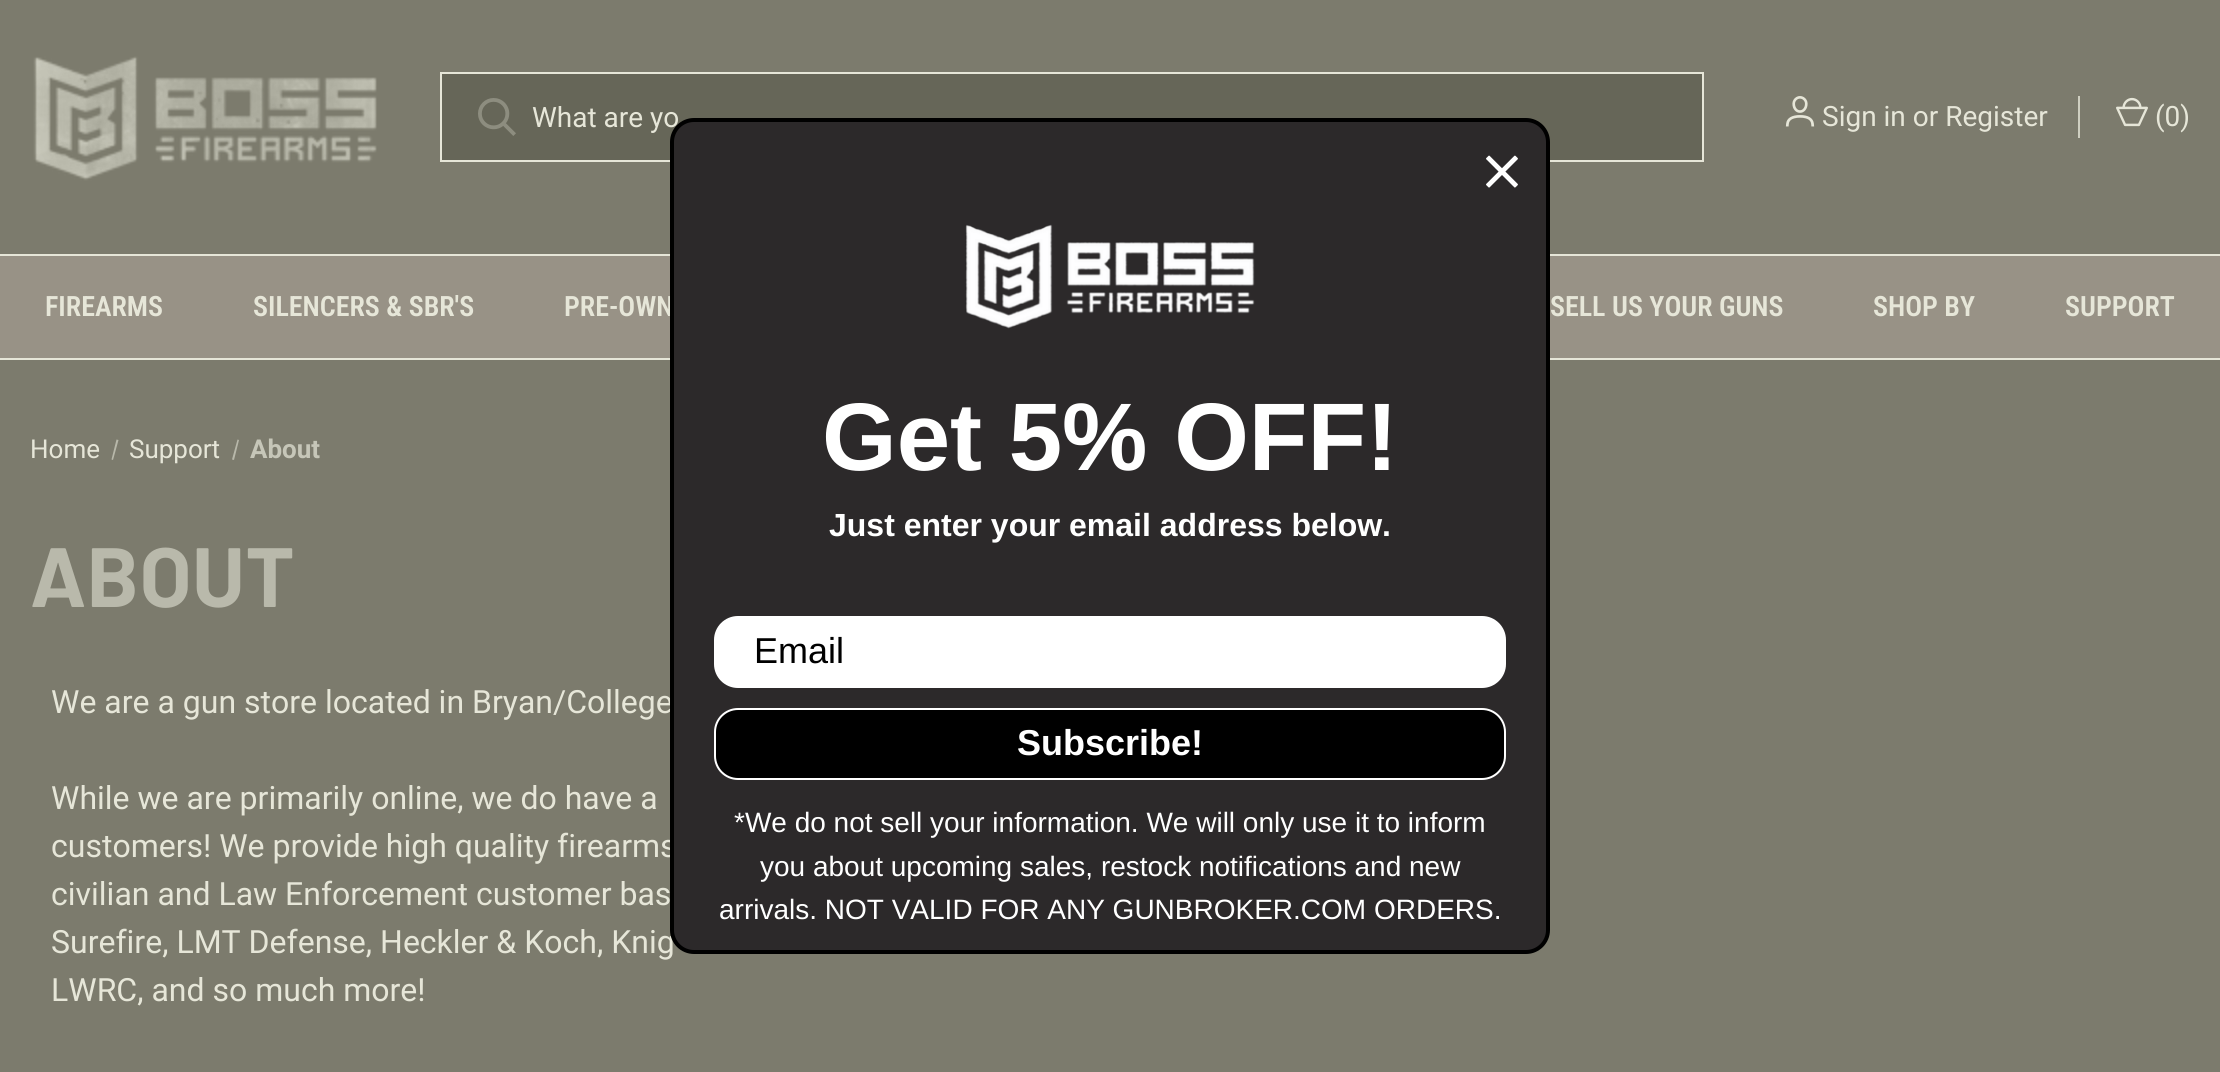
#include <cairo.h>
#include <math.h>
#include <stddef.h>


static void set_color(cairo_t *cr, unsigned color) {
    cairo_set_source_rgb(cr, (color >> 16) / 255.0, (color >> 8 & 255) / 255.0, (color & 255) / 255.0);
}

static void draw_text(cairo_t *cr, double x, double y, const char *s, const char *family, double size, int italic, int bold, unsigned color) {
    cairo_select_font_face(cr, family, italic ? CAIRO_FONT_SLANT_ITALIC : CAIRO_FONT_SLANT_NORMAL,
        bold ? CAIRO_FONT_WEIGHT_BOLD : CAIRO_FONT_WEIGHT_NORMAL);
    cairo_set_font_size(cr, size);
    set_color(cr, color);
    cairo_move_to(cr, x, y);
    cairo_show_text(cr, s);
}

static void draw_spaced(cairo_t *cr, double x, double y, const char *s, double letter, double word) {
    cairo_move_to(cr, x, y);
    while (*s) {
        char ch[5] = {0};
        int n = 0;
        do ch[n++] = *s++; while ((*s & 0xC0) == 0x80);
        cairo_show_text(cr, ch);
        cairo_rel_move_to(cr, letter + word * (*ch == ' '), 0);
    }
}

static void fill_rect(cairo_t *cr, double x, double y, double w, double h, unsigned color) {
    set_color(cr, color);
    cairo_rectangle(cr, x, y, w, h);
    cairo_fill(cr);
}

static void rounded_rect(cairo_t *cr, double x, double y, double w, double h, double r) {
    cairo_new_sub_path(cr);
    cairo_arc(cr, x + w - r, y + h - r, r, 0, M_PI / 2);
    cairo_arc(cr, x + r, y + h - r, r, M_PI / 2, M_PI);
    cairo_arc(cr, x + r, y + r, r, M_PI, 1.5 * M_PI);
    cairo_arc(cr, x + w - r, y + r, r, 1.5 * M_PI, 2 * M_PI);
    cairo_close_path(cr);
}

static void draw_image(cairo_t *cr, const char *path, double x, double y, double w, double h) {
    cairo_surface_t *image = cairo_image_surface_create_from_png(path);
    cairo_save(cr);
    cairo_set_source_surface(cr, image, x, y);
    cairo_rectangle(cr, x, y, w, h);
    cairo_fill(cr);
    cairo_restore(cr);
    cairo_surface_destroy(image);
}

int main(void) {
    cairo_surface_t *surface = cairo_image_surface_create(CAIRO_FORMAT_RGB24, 2220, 1072);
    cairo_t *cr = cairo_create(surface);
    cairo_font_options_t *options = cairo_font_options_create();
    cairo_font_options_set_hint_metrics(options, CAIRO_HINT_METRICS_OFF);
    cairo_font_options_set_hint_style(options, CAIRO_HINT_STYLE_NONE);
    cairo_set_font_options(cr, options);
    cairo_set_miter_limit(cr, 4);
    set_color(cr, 0x7C7B6D);
    cairo_paint(cr);
    draw_image(cr, "assets/img1.png", 33, 56, 344, 125);
    set_color(cr, 0x666658);
    cairo_rectangle(cr, 441, 73, 1262, 88);
    cairo_fill_preserve(cr);
    set_color(cr, 0xE6E6D8);
    cairo_stroke(cr);
    draw_image(cr, "assets/img2.png", 478, 98, 38, 38);
    draw_text(cr, 532, 127, "What are yo", "Roboto", 28, 0, 0, 0xE6E6D8);
    draw_image(cr, "assets/img3.png", 1785, 96, 30, 31);
    draw_text(cr, 1822, 126, "Sign in or Register", "Roboto", 28, 0, 0, 0xE6E6D8);
    fill_rect(cr, 2078, 96, 2, 42, 0xCFCFC1);
    draw_image(cr, "assets/img4.png", 2116, 97, 32, 30);
    draw_text(cr, 2155, 126, "(0)", "Roboto", 28, 0, 0, 0xE6E6D8);
    fill_rect(cr, 0, 256, 2220, 102, 0x989286);
    fill_rect(cr, 0, 254, 2220, 2, 0xE6E6D8);
    fill_rect(cr, 0, 358, 2220, 2, 0xE6E6D8);
    draw_text(cr, 45, 316, "FIREARMS", "Roboto Condensed SemiBold", 28, 0, 0, 0xE6E6D8);
    draw_text(cr, 253, 316, "SILENCERS & SBR'S", "Roboto Condensed SemiBold", 28, 0, 0, 0xE6E6D8);
    draw_text(cr, 564, 316, "PRE-OWN", "Roboto Condensed SemiBold", 28, 0, 0, 0xE6E6D8);
    draw_text(cr, 1550, 316, "SELL US YOUR GUNS", "Roboto Condensed SemiBold", 28, 0, 0, 0xE6E6D8);
    draw_text(cr, 1873, 316, "SHOP BY", "Roboto Condensed SemiBold", 28, 0, 0, 0xE6E6D8);
    draw_text(cr, 2065, 316, "SUPPORT", "Roboto Condensed SemiBold", 28, 0, 0, 0xE6E6D8);
    draw_text(cr, 30, 458, "Home", "Roboto", 26, 0, 0, 0xE6E6D8);
    set_color(cr, 0xB8B8AA);
    cairo_new_path(cr);
    cairo_move_to(cr, 116.5, 439.5);
    cairo_line_to(cr, 118.5, 440);
    cairo_line_to(cr, 113, 460);
    cairo_line_to(cr, 111.5, 459.5);
    cairo_close_path(cr);
    cairo_fill(cr);
    draw_text(cr, 129, 458, "Support", "Roboto", 26, 0, 0, 0xE6E6D8);
    set_color(cr, 0xB8B8AA);
    cairo_new_path(cr);
    cairo_move_to(cr, 237.5, 439.5);
    cairo_line_to(cr, 239, 440);
    cairo_line_to(cr, 234, 460);
    cairo_line_to(cr, 232, 459.5);
    cairo_close_path(cr);
    cairo_fill(cr);
    draw_text(cr, 250, 458, "About", "Roboto", 26, 0, 1, 0xC6C6B8);
    cairo_select_font_face(cr, "Barlow", CAIRO_FONT_SLANT_NORMAL, CAIRO_FONT_WEIGHT_BOLD);
    cairo_set_font_size(cr, 84);
    set_color(cr, 0xB9B9AB);
    draw_spaced(cr, 30, 607, "ABOUT", 0.5, 0);
    draw_text(cr, 51, 713, "We are a gun store located in Bryan/College", "Roboto", 32, 0, 0, 0xE6E6D8);
    draw_text(cr, 51, 809, "While we are primarily online, we do have a", "Roboto", 32, 0, 0, 0xE6E6D8);
    draw_text(cr, 51, 857, "customers! We provide high quality firearms", "Roboto", 32, 0, 0, 0xE6E6D8);
    draw_text(cr, 51, 905, "civilian and Law Enforcement customer bas", "Roboto", 32, 0, 0, 0xE6E6D8);
    draw_text(cr, 51, 953, "Surefire, LMT Defense, Heckler & Koch, Knig", "Roboto", 32, 0, 0, 0xE6E6D8);
    draw_text(cr, 51, 1001, "LWRC, and so much more!", "Roboto", 32, 0, 0, 0xE6E6D8);
    set_color(cr, 0x2C292A);
    rounded_rect(cr, 672, 120, 876, 832, 22);
    cairo_fill_preserve(cr);
    set_color(cr, 0x000000);
    cairo_set_line_width(cr, 4);
    cairo_stroke(cr);
    draw_image(cr, "assets/img5.png", 1486, 155, 32, 33);
    draw_image(cr, "assets/img6.png", 965, 224, 290, 105);
    draw_text(cr, 822, 470, "Get 5% OFF!", "Liberation Sans", 96, 0, 1, 0xFFFFFF);
    draw_text(cr, 829, 536, "Just enter your email address below.", "Liberation Sans", 32, 0, 1, 0xFFFFFF);
    rounded_rect(cr, 714, 616, 792, 72, 24);
    cairo_fill(cr);
    draw_text(cr, 754, 663, "Email", "Liberation Sans", 36, 0, 0, 0x000000);
    rounded_rect(cr, 715, 709, 790, 70, 23);
    cairo_fill_preserve(cr);
    set_color(cr, 0xFFFFFF);
    cairo_set_line_width(cr, 2);
    cairo_stroke(cr);
    draw_text(cr, 1017, 755, "Subscribe!", "Liberation Sans", 36, 0, 1, 0xFFFFFF);
    draw_text(cr, 734, 832, "*We do not sell your information. We will only use it to inform", "Liberation Sans", 28, 0, 0, 0xFFFFFF);
    draw_text(cr, 760, 876, "you about upcoming sales, restock notifications and new", "Liberation Sans", 28, 0, 0, 0xFFFFFF);
    draw_text(cr, 719, 919, "arrivals. NOT VALID FOR ANY GUNBROKER.COM ORDERS.", "Liberation Sans", 28, 0, 0, 0xFFFFFF);
    cairo_surface_write_to_png(surface, "output.png");
    cairo_font_options_destroy(options);
    cairo_destroy(cr);
    cairo_surface_destroy(surface);
    return 0;
}
